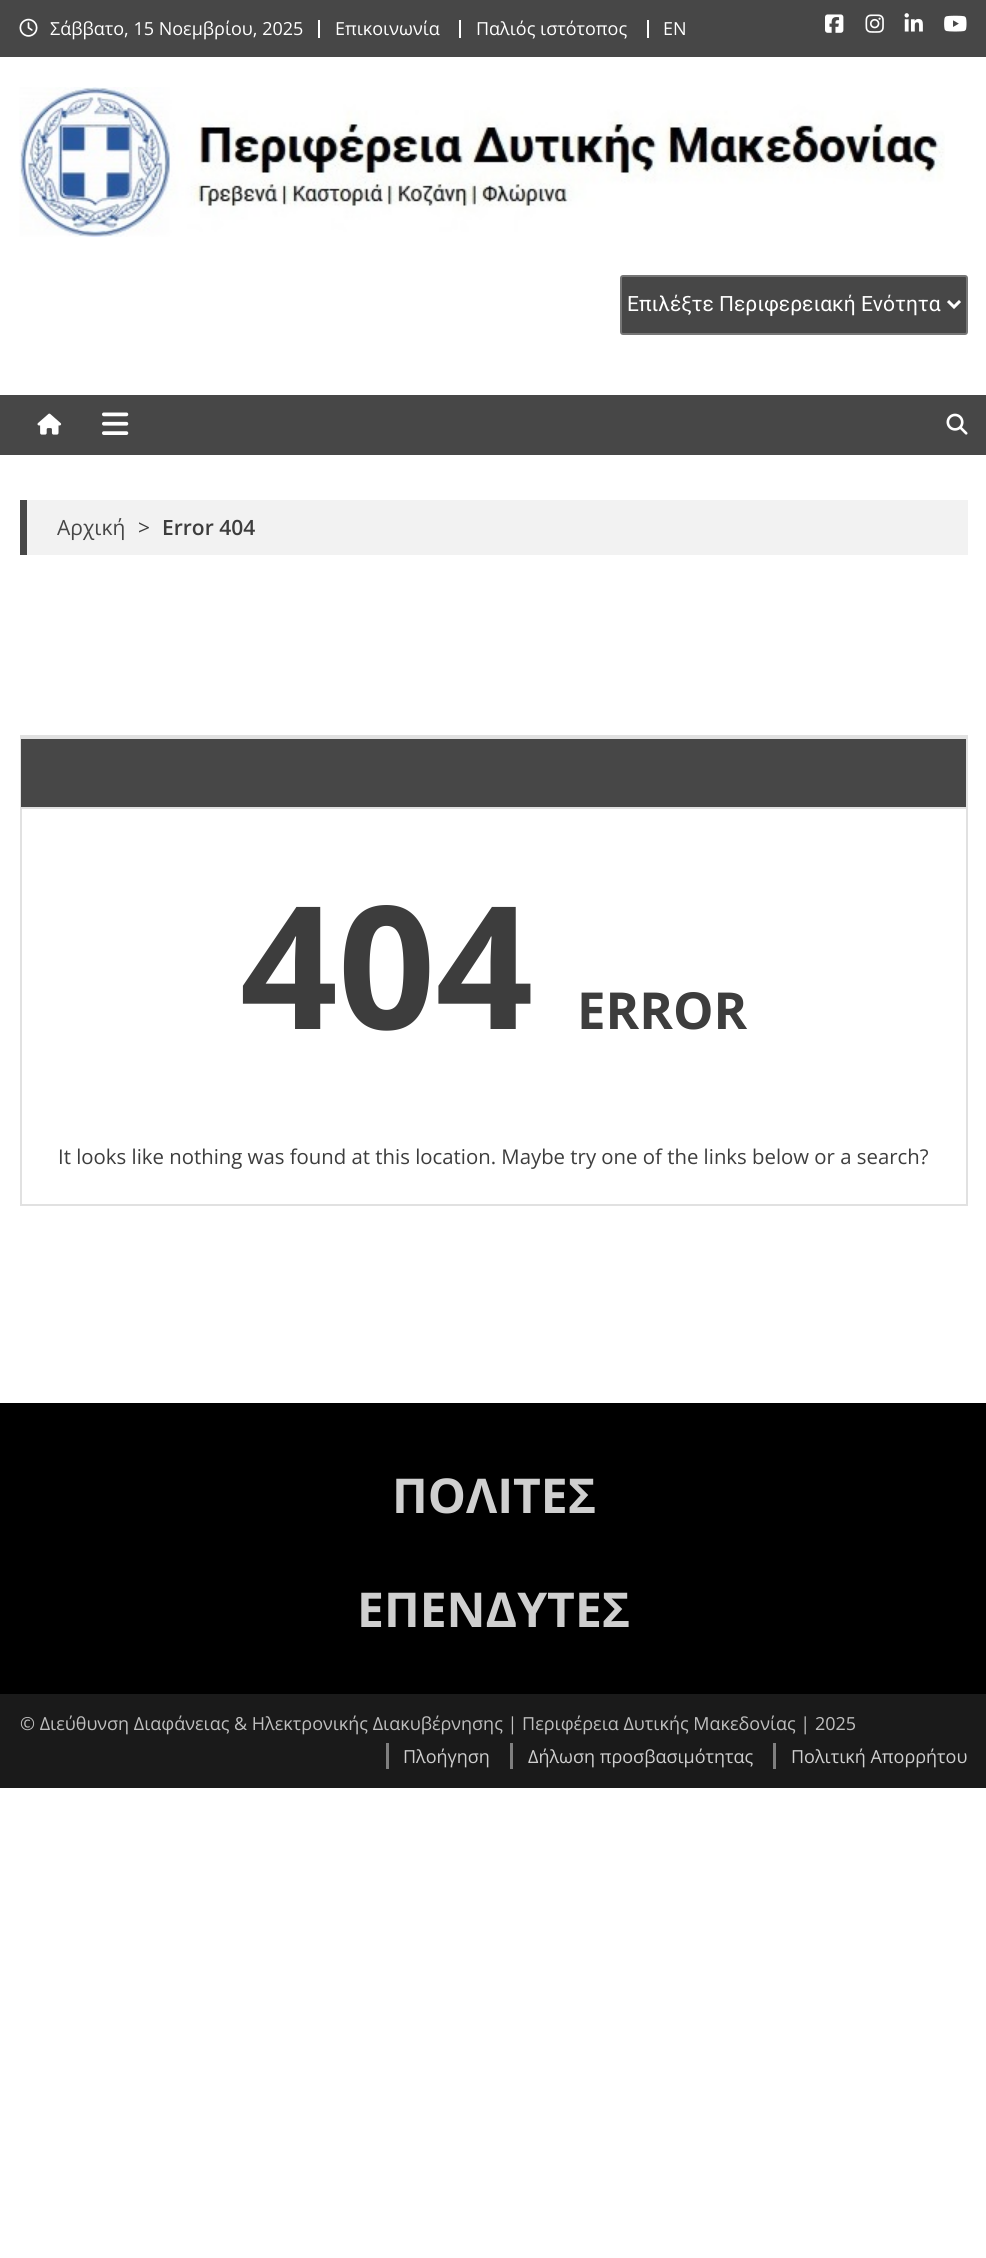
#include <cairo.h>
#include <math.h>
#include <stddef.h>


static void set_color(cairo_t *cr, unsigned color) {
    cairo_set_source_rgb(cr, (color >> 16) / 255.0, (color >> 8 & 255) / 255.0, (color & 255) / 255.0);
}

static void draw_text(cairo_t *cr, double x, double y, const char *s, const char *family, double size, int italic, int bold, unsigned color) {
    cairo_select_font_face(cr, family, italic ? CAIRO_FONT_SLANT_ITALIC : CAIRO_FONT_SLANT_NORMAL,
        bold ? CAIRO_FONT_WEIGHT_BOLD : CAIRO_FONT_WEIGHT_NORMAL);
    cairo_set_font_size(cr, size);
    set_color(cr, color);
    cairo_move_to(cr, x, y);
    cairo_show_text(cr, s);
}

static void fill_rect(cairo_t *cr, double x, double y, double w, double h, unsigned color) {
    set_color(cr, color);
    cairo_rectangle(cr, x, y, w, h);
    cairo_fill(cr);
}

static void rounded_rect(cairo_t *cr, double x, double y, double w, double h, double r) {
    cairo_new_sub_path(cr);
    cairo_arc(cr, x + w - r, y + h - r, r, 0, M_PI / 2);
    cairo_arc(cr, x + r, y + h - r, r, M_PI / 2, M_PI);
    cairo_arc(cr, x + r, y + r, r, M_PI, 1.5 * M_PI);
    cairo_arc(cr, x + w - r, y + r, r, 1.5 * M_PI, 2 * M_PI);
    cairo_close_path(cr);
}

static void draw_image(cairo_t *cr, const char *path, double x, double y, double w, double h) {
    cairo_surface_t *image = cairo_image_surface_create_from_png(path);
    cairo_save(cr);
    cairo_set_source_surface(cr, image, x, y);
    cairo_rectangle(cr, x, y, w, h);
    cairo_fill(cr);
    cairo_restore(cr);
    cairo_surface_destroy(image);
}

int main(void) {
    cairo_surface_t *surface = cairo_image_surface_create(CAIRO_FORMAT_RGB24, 986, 2258);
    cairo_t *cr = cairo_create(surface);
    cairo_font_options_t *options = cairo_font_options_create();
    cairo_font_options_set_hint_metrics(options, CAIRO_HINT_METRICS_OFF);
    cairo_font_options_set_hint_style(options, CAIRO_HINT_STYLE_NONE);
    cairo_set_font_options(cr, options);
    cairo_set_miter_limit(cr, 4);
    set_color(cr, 0xFFFFFF);
    cairo_paint(cr);
    fill_rect(cr, 0, 0, 986, 57, 0x474747);
    draw_image(cr, "assets/img1.png", 19, 18, 19, 19);
    draw_text(cr, 50, 35, "Σάββατο, 15 Νοεμβρίου, 2025", "Open Sans", 18, 0, 0, 0xFFFFFF);
    fill_rect(cr, 318, 20, 2, 18, 0xFFFFFF);
    draw_text(cr, 335, 35, "Επικοινωνία", "Open Sans", 18, 0, 0, 0xFFFFFF);
    fill_rect(cr, 459, 20, 2, 18, 0xFFFFFF);
    draw_text(cr, 476, 35, "Παλιός ιστότοπος", "Open Sans", 18, 0, 0, 0xFFFFFF);
    fill_rect(cr, 647, 20, 2, 18, 0xFFFFFF);
    draw_text(cr, 663, 35, "EN", "Open Sans", 18, 0, 0, 0xFFFFFF);
    draw_image(cr, "assets/img2.png", 825, 14, 19, 19);
    draw_image(cr, "assets/img3.png", 865, 14, 19, 19);
    draw_image(cr, "assets/img4.png", 904, 13, 19, 19);
    draw_image(cr, "assets/img5.png", 944, 15, 23, 17);
    draw_image(cr, "assets/img6.png", 19, 87, 926, 150);
    set_color(cr, 0x474747);
    rounded_rect(cr, 621, 276, 346, 58, 2);
    cairo_fill_preserve(cr);
    set_color(cr, 0x767676);
    cairo_stroke(cr);
    cairo_new_path(cr);
    cairo_move_to(cr, 948, 301);
    cairo_line_to(cr, 954, 307);
    cairo_line_to(cr, 960, 301);
    set_color(cr, 0xFFFFFF);
    cairo_set_line_width(cr, 3);
    cairo_stroke(cr);
    draw_text(cr, 627, 311, "Επιλέξτε Περιφερειακή Ενότητα", "Roboto", 21, 0, 0, 0xFFFFFF);
    fill_rect(cr, 0, 395, 986, 60, 0x474747);
    draw_image(cr, "assets/img7.png", 37, 413, 25, 22);
    draw_image(cr, "assets/img8.png", 102, 412, 27, 23);
    draw_image(cr, "assets/img9.png", 946, 413, 22, 22);
    fill_rect(cr, 27, 500, 941, 55, 0xF2F2F2);
    fill_rect(cr, 20, 500, 7, 55, 0x474747);
    draw_text(cr, 57, 535, "Αρχική", "Open Sans", 21, 0, 0, 0x474747);
    draw_text(cr, 138, 535, ">", "Open Sans", 21, 0, 0, 0x3D3D3D);
    draw_text(cr, 162, 535, "Error 404", "Open Sans SemiBold", 21, 0, 0, 0x3D3D3D);
    cairo_rectangle(cr, 21, 736, 946, 469);
    set_color(cr, 0xE1E1E1);
    cairo_set_line_width(cr, 2);
    cairo_stroke(cr);
    fill_rect(cr, 21, 739, 945, 68, 0x474747);
    fill_rect(cr, 21, 737, 945, 2, 0xE1E1E1);
    fill_rect(cr, 21, 807, 945, 2, 0xE1E1E1);
    draw_text(cr, 240, 1029, "404", "Open Sans", 171, 0, 1, 0x3D3D3D);
    draw_text(cr, 577, 1029, "ERROR", "Open Sans", 51, 0, 1, 0x3D3D3D);
    draw_text(cr, 58, 1164, "It looks like nothing was found at this location. Maybe try one of the links below or a search?", "Open Sans", 20.35, 0, 0, 0x3D3D3D);
    fill_rect(cr, 0, 1403, 986, 291, 0x000000);
    draw_text(cr, 392, 1513, "ΠΟΛΙΤΕΣ", "Open Sans", 48, 0, 1, 0xCFCFCF);
    draw_text(cr, 357, 1627, "ΕΠΕΝΔΥΤΕΣ", "Open Sans", 48, 0, 1, 0xCFCFCF);
    fill_rect(cr, 0, 1694, 986, 94, 0x1A1A1A);
    draw_text(cr, 20, 1730, "© Διεύθυνση Διαφάνειας & Ηλεκτρονικής Διακυβέρνησης | Περιφέρεια Δυτικής Μακεδονίας | 2025", "Open Sans", 18, 0, 0, 0xBFBFBF);
    draw_text(cr, 403, 1763, "Πλοήγηση", "Open Sans", 18, 0, 0, 0xCFCFCF);
    fill_rect(cr, 386, 1743, 3, 26, 0x7F7F7F);
    draw_text(cr, 528, 1763, "Δήλωση προσβασιμότητας", "Open Sans", 18, 0, 0, 0xCFCFCF);
    fill_rect(cr, 510, 1743, 3, 26, 0x7F7F7F);
    draw_text(cr, 791, 1763, "Πολιτική Απορρήτου", "Open Sans", 18, 0, 0, 0xCFCFCF);
    fill_rect(cr, 773, 1743, 3, 26, 0x7F7F7F);
    cairo_surface_write_to_png(surface, "output.png");
    cairo_font_options_destroy(options);
    cairo_destroy(cr);
    cairo_surface_destroy(surface);
    return 0;
}
